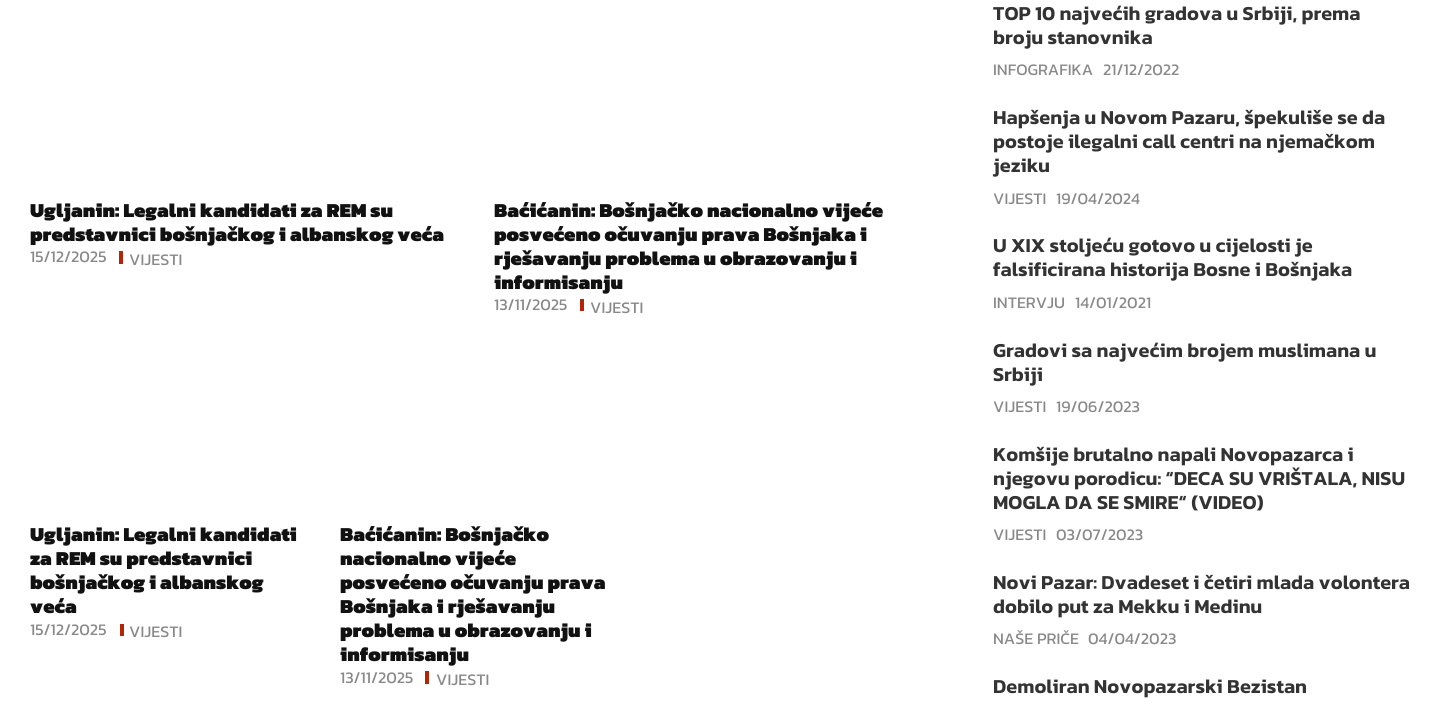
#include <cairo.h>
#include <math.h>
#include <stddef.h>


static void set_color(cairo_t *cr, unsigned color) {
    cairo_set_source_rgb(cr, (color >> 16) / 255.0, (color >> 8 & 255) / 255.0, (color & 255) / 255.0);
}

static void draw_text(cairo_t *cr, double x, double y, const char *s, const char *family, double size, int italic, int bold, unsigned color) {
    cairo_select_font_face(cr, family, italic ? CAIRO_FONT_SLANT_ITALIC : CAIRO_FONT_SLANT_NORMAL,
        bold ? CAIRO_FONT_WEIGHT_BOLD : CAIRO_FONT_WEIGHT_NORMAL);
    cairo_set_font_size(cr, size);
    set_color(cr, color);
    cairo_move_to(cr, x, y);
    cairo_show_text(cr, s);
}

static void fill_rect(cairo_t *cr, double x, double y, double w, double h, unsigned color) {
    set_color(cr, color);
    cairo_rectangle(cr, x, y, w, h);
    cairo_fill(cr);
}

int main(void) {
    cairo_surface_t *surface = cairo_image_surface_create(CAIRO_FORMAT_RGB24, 1443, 709);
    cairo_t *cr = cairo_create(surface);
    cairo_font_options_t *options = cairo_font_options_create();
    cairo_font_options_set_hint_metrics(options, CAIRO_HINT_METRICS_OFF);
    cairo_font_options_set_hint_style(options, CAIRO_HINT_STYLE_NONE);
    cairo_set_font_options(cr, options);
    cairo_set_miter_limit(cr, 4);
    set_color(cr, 0xFFFFFF);
    cairo_paint(cr);
    draw_text(cr, 30, 217, "Ugljanin: Legalni kandidati za REM su", "Kanit Black", 20, 0, 0, 0x111111);
    draw_text(cr, 30, 241, "predstavnici bošnjačkog i albanskog veća", "Kanit Black", 20, 0, 0, 0x111111);
    draw_text(cr, 30, 262, "15/12/2025", "Kanit", 16.25, 0, 0, 0x898989);
    fill_rect(cr, 119, 251, 4, 13, 0xB22505);
    draw_text(cr, 129, 265, "VIJESTI", "Kanit", 16.25, 0, 0, 0x898989);
    draw_text(cr, 494, 217, "Baćićanin: Bošnjačko nacionalno vijeće", "Kanit Black", 20, 0, 0, 0x111111);
    draw_text(cr, 494, 241, "posvećeno očuvanju prava Bošnjaka i", "Kanit Black", 20, 0, 0, 0x111111);
    draw_text(cr, 494, 265, "rješavanju problema u obrazovanju i", "Kanit Black", 20, 0, 0, 0x111111);
    draw_text(cr, 494, 289, "informisanju", "Kanit Black", 20, 0, 0, 0x111111);
    draw_text(cr, 494, 310, "13/11/2025", "Kanit", 16.25, 0, 0, 0x898989);
    fill_rect(cr, 580, 299, 4, 12, 0xB22505);
    draw_text(cr, 590, 313, "VIJESTI", "Kanit", 16.25, 0, 0, 0x898989);
    draw_text(cr, 30, 541, "Ugljanin: Legalni kandidati", "Kanit Black", 20, 0, 0, 0x111111);
    draw_text(cr, 30, 565, "za REM su predstavnici", "Kanit Black", 20, 0, 0, 0x111111);
    draw_text(cr, 30, 589, "bošnjačkog i albanskog", "Kanit Black", 20, 0, 0, 0x111111);
    draw_text(cr, 30, 613, "veća", "Kanit Black", 20, 0, 0, 0x111111);
    draw_text(cr, 30, 635, "15/12/2025", "Kanit", 16.25, 0, 0, 0x898989);
    fill_rect(cr, 120, 624, 4, 12, 0xB22505);
    draw_text(cr, 129, 637, "VIJESTI", "Kanit", 16.25, 0, 0, 0x898989);
    draw_text(cr, 340, 541, "Baćićanin: Bošnjačko", "Kanit Black", 20, 0, 0, 0x111111);
    draw_text(cr, 340, 565, "nacionalno vijeće", "Kanit Black", 20, 0, 0, 0x111111);
    draw_text(cr, 340, 589, "posvećeno očuvanju prava", "Kanit Black", 20, 0, 0, 0x111111);
    draw_text(cr, 340, 613, "Bošnjaka i rješavanju", "Kanit Black", 20, 0, 0, 0x111111);
    draw_text(cr, 340, 637, "problema u obrazovanju i", "Kanit Black", 20, 0, 0, 0x111111);
    draw_text(cr, 340, 661, "informisanju", "Kanit Black", 20, 0, 0, 0x111111);
    draw_text(cr, 340, 683, "13/11/2025", "Kanit", 16.25, 0, 0, 0x898989);
    fill_rect(cr, 425, 671, 4, 13, 0xB22505);
    draw_text(cr, 436, 685, "VIJESTI", "Kanit", 16.25, 0, 0, 0x898989);
    draw_text(cr, 993, 20, "TOP 10 najvećih gradova u Srbiji, prema", "Kanit SemiBold", 20, 0, 0, 0x333333);
    draw_text(cr, 993, 44, "broju stanovnika", "Kanit SemiBold", 20, 0, 0, 0x333333);
    draw_text(cr, 993, 75, "INFOGRAFIKA", "Kanit", 16.25, 0, 0, 0x898989);
    draw_text(cr, 1103, 75, "21/12/2022", "Kanit", 16.25, 0, 0, 0x898989);
    draw_text(cr, 993, 124, "Hapšenja u Novom Pazaru, špekuliše se da", "Kanit SemiBold", 20, 0, 0, 0x333333);
    draw_text(cr, 993, 148, "postoje ilegalni call centri na njemačkom", "Kanit SemiBold", 20, 0, 0, 0x333333);
    draw_text(cr, 993, 172, "jeziku", "Kanit SemiBold", 20, 0, 0, 0x333333);
    draw_text(cr, 993, 204, "VIJESTI", "Kanit", 16.25, 0, 0, 0x898989);
    draw_text(cr, 1056, 204, "19/04/2024", "Kanit", 16.25, 0, 0, 0x898989);
    draw_text(cr, 993, 252, "U XIX stoljeću gotovo u cijelosti je", "Kanit SemiBold", 20, 0, 0, 0x333333);
    draw_text(cr, 993, 276, "falsificirana historija Bosne i Bošnjaka", "Kanit SemiBold", 20, 0, 0, 0x333333);
    draw_text(cr, 993, 308, "INTERVJU", "Kanit", 16.25, 0, 0, 0x898989);
    draw_text(cr, 1075, 308, "14/01/2021", "Kanit", 16.25, 0, 0, 0x898989);
    draw_text(cr, 993, 357, "Gradovi sa najvećim brojem muslimana u", "Kanit SemiBold", 20, 0, 0, 0x333333);
    draw_text(cr, 993, 381, "Srbiji", "Kanit SemiBold", 20, 0, 0, 0x333333);
    draw_text(cr, 993, 412, "VIJESTI", "Kanit", 16.25, 0, 0, 0x898989);
    draw_text(cr, 1056, 412, "19/06/2023", "Kanit", 16.25, 0, 0, 0x898989);
    draw_text(cr, 993, 461, "Komšije brutalno napali Novopazarca i", "Kanit SemiBold", 20, 0, 0, 0x333333);
    draw_text(cr, 993, 485, "njegovu porodicu: “DECA SU VRIŠTALA, NISU", "Kanit SemiBold", 20, 0, 0, 0x333333);
    draw_text(cr, 993, 509, "MOGLA DA SE SMIRE“ (VIDEO)", "Kanit SemiBold", 20, 0, 0, 0x333333);
    draw_text(cr, 993, 540, "VIJESTI", "Kanit", 16.25, 0, 0, 0x898989);
    draw_text(cr, 1056, 540, "03/07/2023", "Kanit", 16.25, 0, 0, 0x898989);
    draw_text(cr, 993, 589, "Novi Pazar: Dvadeset i četiri mlada volontera", "Kanit SemiBold", 20, 0, 0, 0x333333);
    draw_text(cr, 993, 613, "dobilo put za Mekku i Medinu", "Kanit SemiBold", 20, 0, 0, 0x333333);
    draw_text(cr, 993, 644, "NAŠE PRIČE", "Kanit", 16.25, 0, 0, 0x898989);
    draw_text(cr, 1088, 644, "04/04/2023", "Kanit", 16.25, 0, 0, 0x898989);
    draw_text(cr, 993, 693, "Demoliran Novopazarski Bezistan", "Kanit SemiBold", 20, 0, 0, 0x333333);
    cairo_surface_write_to_png(surface, "output.png");
    cairo_font_options_destroy(options);
    cairo_destroy(cr);
    cairo_surface_destroy(surface);
    return 0;
}
